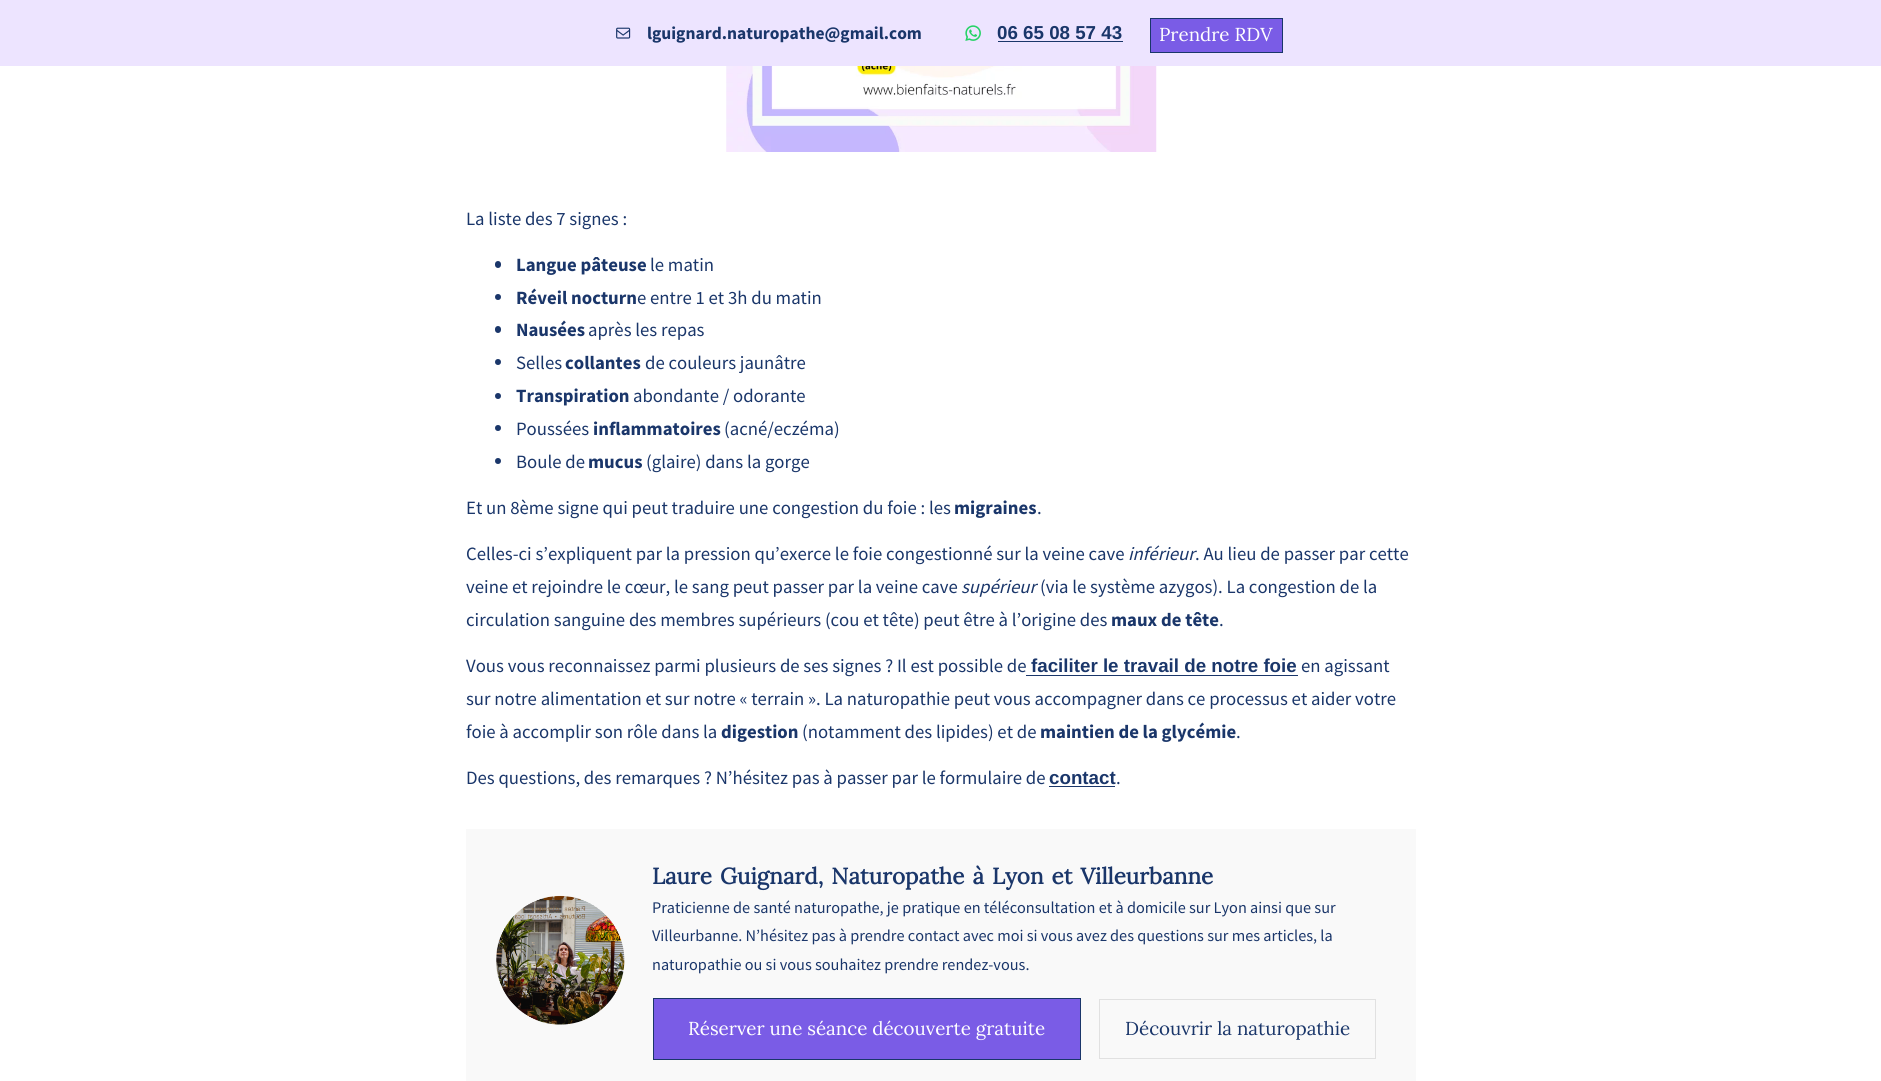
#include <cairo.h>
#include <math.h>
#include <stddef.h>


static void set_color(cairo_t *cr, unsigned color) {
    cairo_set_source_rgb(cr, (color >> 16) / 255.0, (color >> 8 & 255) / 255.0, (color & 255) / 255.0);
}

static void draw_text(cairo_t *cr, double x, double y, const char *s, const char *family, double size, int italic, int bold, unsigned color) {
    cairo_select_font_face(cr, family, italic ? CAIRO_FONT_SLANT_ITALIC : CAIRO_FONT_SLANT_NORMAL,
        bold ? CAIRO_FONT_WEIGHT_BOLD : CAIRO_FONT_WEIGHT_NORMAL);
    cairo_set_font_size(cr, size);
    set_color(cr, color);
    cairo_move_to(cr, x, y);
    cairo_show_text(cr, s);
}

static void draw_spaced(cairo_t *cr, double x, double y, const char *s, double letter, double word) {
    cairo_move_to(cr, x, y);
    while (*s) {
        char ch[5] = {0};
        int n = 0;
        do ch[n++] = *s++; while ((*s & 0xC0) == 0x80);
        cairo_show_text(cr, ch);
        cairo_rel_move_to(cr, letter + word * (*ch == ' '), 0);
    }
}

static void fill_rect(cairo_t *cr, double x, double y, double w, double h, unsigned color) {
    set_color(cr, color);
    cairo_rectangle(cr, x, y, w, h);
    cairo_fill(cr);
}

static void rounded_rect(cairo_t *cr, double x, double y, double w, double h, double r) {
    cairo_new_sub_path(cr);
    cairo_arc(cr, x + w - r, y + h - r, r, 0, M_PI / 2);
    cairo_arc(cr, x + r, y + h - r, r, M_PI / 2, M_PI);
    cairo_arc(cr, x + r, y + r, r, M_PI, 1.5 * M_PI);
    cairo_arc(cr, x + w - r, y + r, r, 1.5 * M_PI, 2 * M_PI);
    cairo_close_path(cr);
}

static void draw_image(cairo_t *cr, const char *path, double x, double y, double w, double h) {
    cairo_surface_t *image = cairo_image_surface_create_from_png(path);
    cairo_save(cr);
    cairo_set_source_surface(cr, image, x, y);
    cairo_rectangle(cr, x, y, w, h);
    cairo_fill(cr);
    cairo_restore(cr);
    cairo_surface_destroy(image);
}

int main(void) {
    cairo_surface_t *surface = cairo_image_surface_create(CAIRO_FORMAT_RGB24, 1881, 1081);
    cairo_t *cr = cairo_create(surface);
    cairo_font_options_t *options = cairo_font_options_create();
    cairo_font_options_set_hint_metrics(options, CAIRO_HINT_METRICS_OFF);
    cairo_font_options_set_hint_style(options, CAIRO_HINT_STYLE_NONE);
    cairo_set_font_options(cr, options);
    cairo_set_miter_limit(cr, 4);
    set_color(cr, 0xFFFFFF);
    cairo_paint(cr);
    fill_rect(cr, 0, 0, 1881, 66, 0xEDE4FF);
    draw_image(cr, "assets/img1.png", 616, 27, 15, 12);
    draw_text(cr, 647, 39, "lguignard.naturopathe@gmail.com", "Source Sans Pro", 17.5, 0, 1, 0x1A366A);
    draw_image(cr, "assets/img2.png", 965, 25, 16, 16);
    draw_text(cr, 997, 39, "06 65 08 57 43", "Liberation Sans", 18.75, 0, 1, 0x1A366A);
    fill_rect(cr, 998, 41, 125, 1, 0x1A366A);
    set_color(cr, 0x7A5CE6);
    cairo_rectangle(cr, 1150.5, 18.5, 132, 34);
    cairo_fill_preserve(cr);
    set_color(cr, 0x1A366A);
    cairo_set_line_width(cr, 1);
    cairo_stroke(cr);
    draw_text(cr, 1159, 41, "Prendre RDV", "Lora", 18.75, 0, 0, 0xFFFFFF);
    draw_image(cr, "assets/img3.png", 726, 66, 431, 86);
    draw_text(cr, 466, 225, "La liste des 7 signes :", "Source Sans Pro", 18.75, 0, 0, 0x1A366A);
    rounded_rect(cr, 495, 261, 6, 7, 3);
    cairo_fill(cr);
    draw_text(cr, 516, 271, "Langue pâteuse", "Source Sans Pro", 18.75, 0, 1, 0x1A366A);
    draw_text(cr, 650, 271, "le matin", "Source Sans Pro", 18.75, 0, 0, 0x1A366A);
    cairo_new_path(cr);
    cairo_arc(cr, 498, 297, 3, 0, 2 * M_PI);
    cairo_fill(cr);
    draw_text(cr, 516, 304, "Réveil nocturn", "Source Sans Pro", 18.75, 0, 1, 0x1A366A);
    draw_text(cr, 637, 304, "e entre 1 et 3h du matin", "Source Sans Pro", 18.75, 0, 0, 0x1A366A);
    rounded_rect(cr, 495, 326, 6, 7, 3);
    cairo_fill(cr);
    draw_text(cr, 516, 336, "Nausées", "Source Sans Pro", 18.75, 0, 1, 0x1A366A);
    draw_text(cr, 588, 336, "après les repas", "Source Sans Pro", 18.75, 0, 0, 0x1A366A);
    cairo_new_path(cr);
    cairo_arc(cr, 498, 362, 3, 0, 2 * M_PI);
    cairo_fill(cr);
    draw_text(cr, 516, 369, "Selles", "Source Sans Pro", 18.75, 0, 0, 0x1A366A);
    draw_text(cr, 565, 369, "collantes", "Source Sans Pro", 18.75, 0, 1, 0x1A366A);
    draw_text(cr, 645, 369, "de couleurs jaunâtre", "Source Sans Pro", 18.75, 0, 0, 0x1A366A);
    cairo_new_path(cr);
    cairo_arc(cr, 498, 396, 3, 0, 2 * M_PI);
    cairo_fill(cr);
    draw_text(cr, 516, 402, "Transpiration", "Source Sans Pro", 18.75, 0, 1, 0x1A366A);
    draw_text(cr, 633, 402, "abondante / odorante", "Source Sans Pro", 18.75, 0, 0, 0x1A366A);
    cairo_new_path(cr);
    cairo_arc(cr, 498, 428, 3, 0, 2 * M_PI);
    cairo_fill(cr);
    draw_text(cr, 516, 435, "Poussées", "Source Sans Pro", 18.75, 0, 0, 0x1A366A);
    draw_text(cr, 593, 435, "inflammatoires", "Source Sans Pro", 18.75, 0, 1, 0x1A366A);
    draw_text(cr, 724, 435, "(acné/eczéma)", "Source Sans Pro", 18.75, 0, 0, 0x1A366A);
    cairo_new_path(cr);
    cairo_arc(cr, 498, 461, 3, 0, 2 * M_PI);
    cairo_fill(cr);
    draw_text(cr, 516, 468, "Boule de", "Source Sans Pro", 18.75, 0, 0, 0x1A366A);
    draw_text(cr, 588, 468, "mucus", "Source Sans Pro", 18.75, 0, 1, 0x1A366A);
    draw_text(cr, 646, 468, "(glaire) dans la gorge", "Source Sans Pro", 18.75, 0, 0, 0x1A366A);
    draw_text(cr, 466, 514, "Et un 8ème signe qui peut traduire une congestion du foie : les", "Source Sans Pro", 18.75, 0, 0, 0x1A366A);
    draw_text(cr, 954, 514, "migraines", "Source Sans Pro", 18.75, 0, 1, 0x1A366A);
    draw_text(cr, 1037, 514, ".", "Source Sans Pro", 18.75, 0, 0, 0x1A366A);
    draw_text(cr, 466, 560, "Celles-ci s’expliquent par la pression qu’exerce le foie congestionné sur la veine cave", "Source Sans Pro", 18.75, 0, 0, 0x1A366A);
    draw_text(cr, 1128, 560, "inférieur", "Source Sans Pro", 18.75, 1, 0, 0x1A366A);
    draw_text(cr, 1195, 560, ". Au lieu de passer par cette", "Source Sans Pro", 18.75, 0, 0, 0x1A366A);
    draw_text(cr, 466, 593, "veine et rejoindre le cœur, le sang peut passer par la veine cave", "Source Sans Pro", 18.75, 0, 0, 0x1A366A);
    draw_text(cr, 961, 593, "supérieur", "Source Sans Pro", 18.75, 1, 0, 0x1A366A);
    draw_text(cr, 1040, 593, "(via le système azygos). La congestion de la", "Source Sans Pro", 18.75, 0, 0, 0x1A366A);
    draw_text(cr, 466, 626, "circulation sanguine des membres supérieurs (cou et tête) peut être à l’origine des", "Source Sans Pro", 18.75, 0, 0, 0x1A366A);
    draw_text(cr, 1111, 626, "maux de tête", "Source Sans Pro", 18.75, 0, 1, 0x1A366A);
    draw_text(cr, 1219, 626, ".", "Source Sans Pro", 18.75, 0, 0, 0x1A366A);
    draw_text(cr, 466, 672, "Vous vous reconnaissez parmi plusieurs de ses signes ? Il est possible de", "Source Sans Pro", 18.75, 0, 0, 0x1A366A);
    draw_text(cr, 1031, 672, "faciliter le travail de notre foie", "Liberation Sans", 18.75, 0, 1, 0x1A366A);
    fill_rect(cr, 1026, 675, 272, 1, 0x1A366A);
    draw_text(cr, 1301, 672, "en agissant", "Source Sans Pro", 18.75, 0, 0, 0x1A366A);
    draw_text(cr, 466, 705, "sur notre alimentation et sur notre « terrain ». La naturopathie peut vous accompagner dans ce processus et aider votre", "Source Sans Pro", 18.75, 0, 0, 0x1A366A);
    draw_text(cr, 466, 738, "foie à accomplir son rôle dans la", "Source Sans Pro", 18.75, 0, 0, 0x1A366A);
    draw_text(cr, 721, 738, "digestion", "Source Sans Pro", 18.75, 0, 1, 0x1A366A);
    draw_text(cr, 802, 738, "(notamment des lipides) et de", "Source Sans Pro", 18.75, 0, 0, 0x1A366A);
    draw_text(cr, 1040, 738, "maintien de la glycémie", "Source Sans Pro", 18.75, 0, 1, 0x1A366A);
    draw_text(cr, 1236, 738, ".", "Source Sans Pro", 18.75, 0, 0, 0x1A366A);
    draw_text(cr, 466, 784, "Des questions, des remarques ? N’hésitez pas à passer par le formulaire de", "Source Sans Pro", 18.75, 0, 0, 0x1A366A);
    draw_text(cr, 1049, 784, "contact", "Liberation Sans", 18.75, 0, 1, 0x1A366A);
    fill_rect(cr, 1049, 786, 66, 1, 0x1A366A);
    draw_text(cr, 1116, 784, ".", "Source Sans Pro", 18.75, 0, 0, 0x1A366A);
    fill_rect(cr, 466, 829, 950, 252, 0xF9F9F9);
    draw_image(cr, "assets/img4.png", 496, 895, 129, 130);
    cairo_select_font_face(cr, "Lora", CAIRO_FONT_SLANT_NORMAL, CAIRO_FONT_WEIGHT_BOLD);
    cairo_set_font_size(cr, 22.5);
    set_color(cr, 0x1A366A);
    draw_spaced(cr, 652, 884, "Laure Guignard, Naturopathe à Lyon et Villeurbanne", 0, 2);
    draw_text(cr, 652, 913, "Praticienne de santé naturopathe, je pratique en téléconsultation et à domicile sur Lyon ainsi que sur", "Source Sans Pro", 16.25, 0, 0, 0x1A366A);
    draw_text(cr, 652, 941, "Villeurbanne. N’hésitez pas à prendre contact avec moi si vous avez des questions sur mes articles, la", "Source Sans Pro", 16.25, 0, 0, 0x1A366A);
    draw_text(cr, 652, 970, "naturopathie ou si vous souhaitez prendre rendez-vous.", "Source Sans Pro", 16.25, 0, 0, 0x1A366A);
    set_color(cr, 0x7A5CE6);
    cairo_rectangle(cr, 653.5, 998.5, 427, 61);
    cairo_fill_preserve(cr);
    set_color(cr, 0x1A366A);
    cairo_stroke(cr);
    draw_text(cr, 688, 1035, "Réserver une séance découverte gratuite", "Lora", 18.75, 0, 0, 0xFFFFFF);
    cairo_rectangle(cr, 1099.5, 999.5, 276, 59);
    set_color(cr, 0xE1E1E1);
    cairo_stroke(cr);
    draw_text(cr, 1125, 1035, "Découvrir la naturopathie", "Lora", 18.75, 0, 0, 0x1A366A);
    cairo_surface_write_to_png(surface, "output.png");
    cairo_font_options_destroy(options);
    cairo_destroy(cr);
    cairo_surface_destroy(surface);
    return 0;
}
